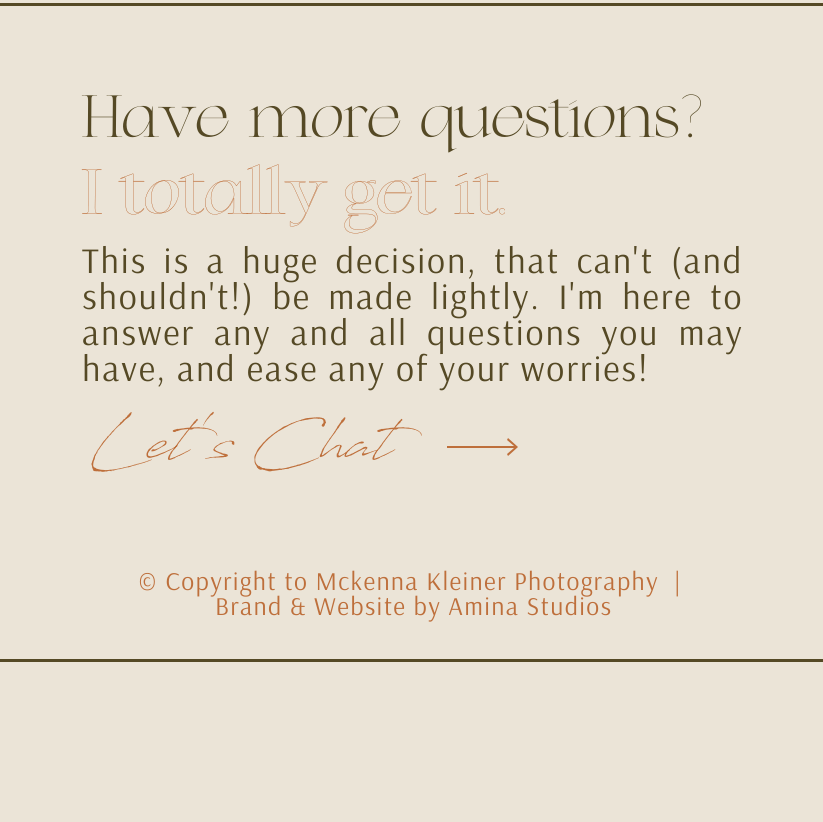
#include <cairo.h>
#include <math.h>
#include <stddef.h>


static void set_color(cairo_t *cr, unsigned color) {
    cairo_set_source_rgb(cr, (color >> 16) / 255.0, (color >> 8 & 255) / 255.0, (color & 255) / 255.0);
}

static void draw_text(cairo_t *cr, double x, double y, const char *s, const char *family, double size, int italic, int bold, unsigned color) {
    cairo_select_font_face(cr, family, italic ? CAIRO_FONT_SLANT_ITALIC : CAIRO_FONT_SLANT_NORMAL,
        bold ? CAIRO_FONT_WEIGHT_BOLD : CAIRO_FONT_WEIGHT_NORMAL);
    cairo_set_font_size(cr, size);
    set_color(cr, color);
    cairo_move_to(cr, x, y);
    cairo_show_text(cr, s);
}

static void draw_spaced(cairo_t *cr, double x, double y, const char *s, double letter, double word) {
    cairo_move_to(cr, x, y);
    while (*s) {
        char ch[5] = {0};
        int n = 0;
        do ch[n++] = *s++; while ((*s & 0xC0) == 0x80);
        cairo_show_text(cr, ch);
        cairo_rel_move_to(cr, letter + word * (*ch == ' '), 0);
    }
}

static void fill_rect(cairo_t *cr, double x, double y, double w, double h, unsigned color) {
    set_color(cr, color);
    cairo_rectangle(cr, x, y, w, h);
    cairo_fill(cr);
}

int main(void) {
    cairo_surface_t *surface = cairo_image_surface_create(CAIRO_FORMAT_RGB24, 823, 822);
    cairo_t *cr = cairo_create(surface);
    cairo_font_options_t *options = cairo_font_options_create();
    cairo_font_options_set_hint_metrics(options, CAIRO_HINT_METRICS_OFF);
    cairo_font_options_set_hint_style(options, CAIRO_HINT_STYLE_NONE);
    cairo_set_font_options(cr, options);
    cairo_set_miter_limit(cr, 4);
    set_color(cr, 0xEBE4D7);
    cairo_paint(cr);
    fill_rect(cr, 0, 3, 823, 3, 0x554925);
    draw_text(cr, 82, 137, "Have more questions?", "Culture", 64.25, 0, 0, 0x554925);
    draw_text(cr, 82, 214, "I totally get it.", "Culture", 59.25, 0, 1, 0xBE6F3B);
    draw_text(cr, 82, 214, "I totally get it.", "Culture", 59.25, 0, 1, 0xBE6F3B);
    cairo_select_font_face(cr, "Arsenal", CAIRO_FONT_SLANT_NORMAL, CAIRO_FONT_WEIGHT_NORMAL);
    cairo_set_font_size(cr, 36);
    set_color(cr, 0x554925);
    draw_spaced(cr, 82, 273, "This is a huge decision, that can't (and", 1.8, 6.5);
    draw_spaced(cr, 82, 309, "shouldn't!) be made lightly. I'm here to", 1.8, 7.25);
    draw_spaced(cr, 82, 345, "answer any and all questions you may", 1.8, 9);
    draw_spaced(cr, 82, 381, "have, and ease any of your worries!", 1.8, 0);
    draw_text(cr, 90, 456, "Let's Chat", "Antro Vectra", 64.25, 0, 0, 0xBE6F3B);
    cairo_new_path(cr);
    cairo_move_to(cr, 508, 438);
    cairo_line_to(cr, 507, 440);
    cairo_line_to(cr, 514, 446);
    cairo_line_to(cr, 447, 446);
    cairo_line_to(cr, 447, 448);
    cairo_line_to(cr, 514, 448);
    cairo_line_to(cr, 507, 454);
    cairo_line_to(cr, 508, 456);
    cairo_line_to(cr, 518, 447);
    cairo_close_path(cr);
    cairo_fill(cr);
    cairo_select_font_face(cr, "Arsenal", CAIRO_FONT_SLANT_NORMAL, CAIRO_FONT_WEIGHT_NORMAL);
    cairo_set_font_size(cr, 25.75);
    draw_spaced(cr, 138, 590, "© Copyright to Mckenna Kleiner Photography  |", 1.3, 0);
    draw_spaced(cr, 215, 615, "Brand & Website by Amina Studios", 1.3, 0);
    fill_rect(cr, 0, 659, 823, 3, 0x554925);
    cairo_surface_write_to_png(surface, "output.png");
    cairo_font_options_destroy(options);
    cairo_destroy(cr);
    cairo_surface_destroy(surface);
    return 0;
}
